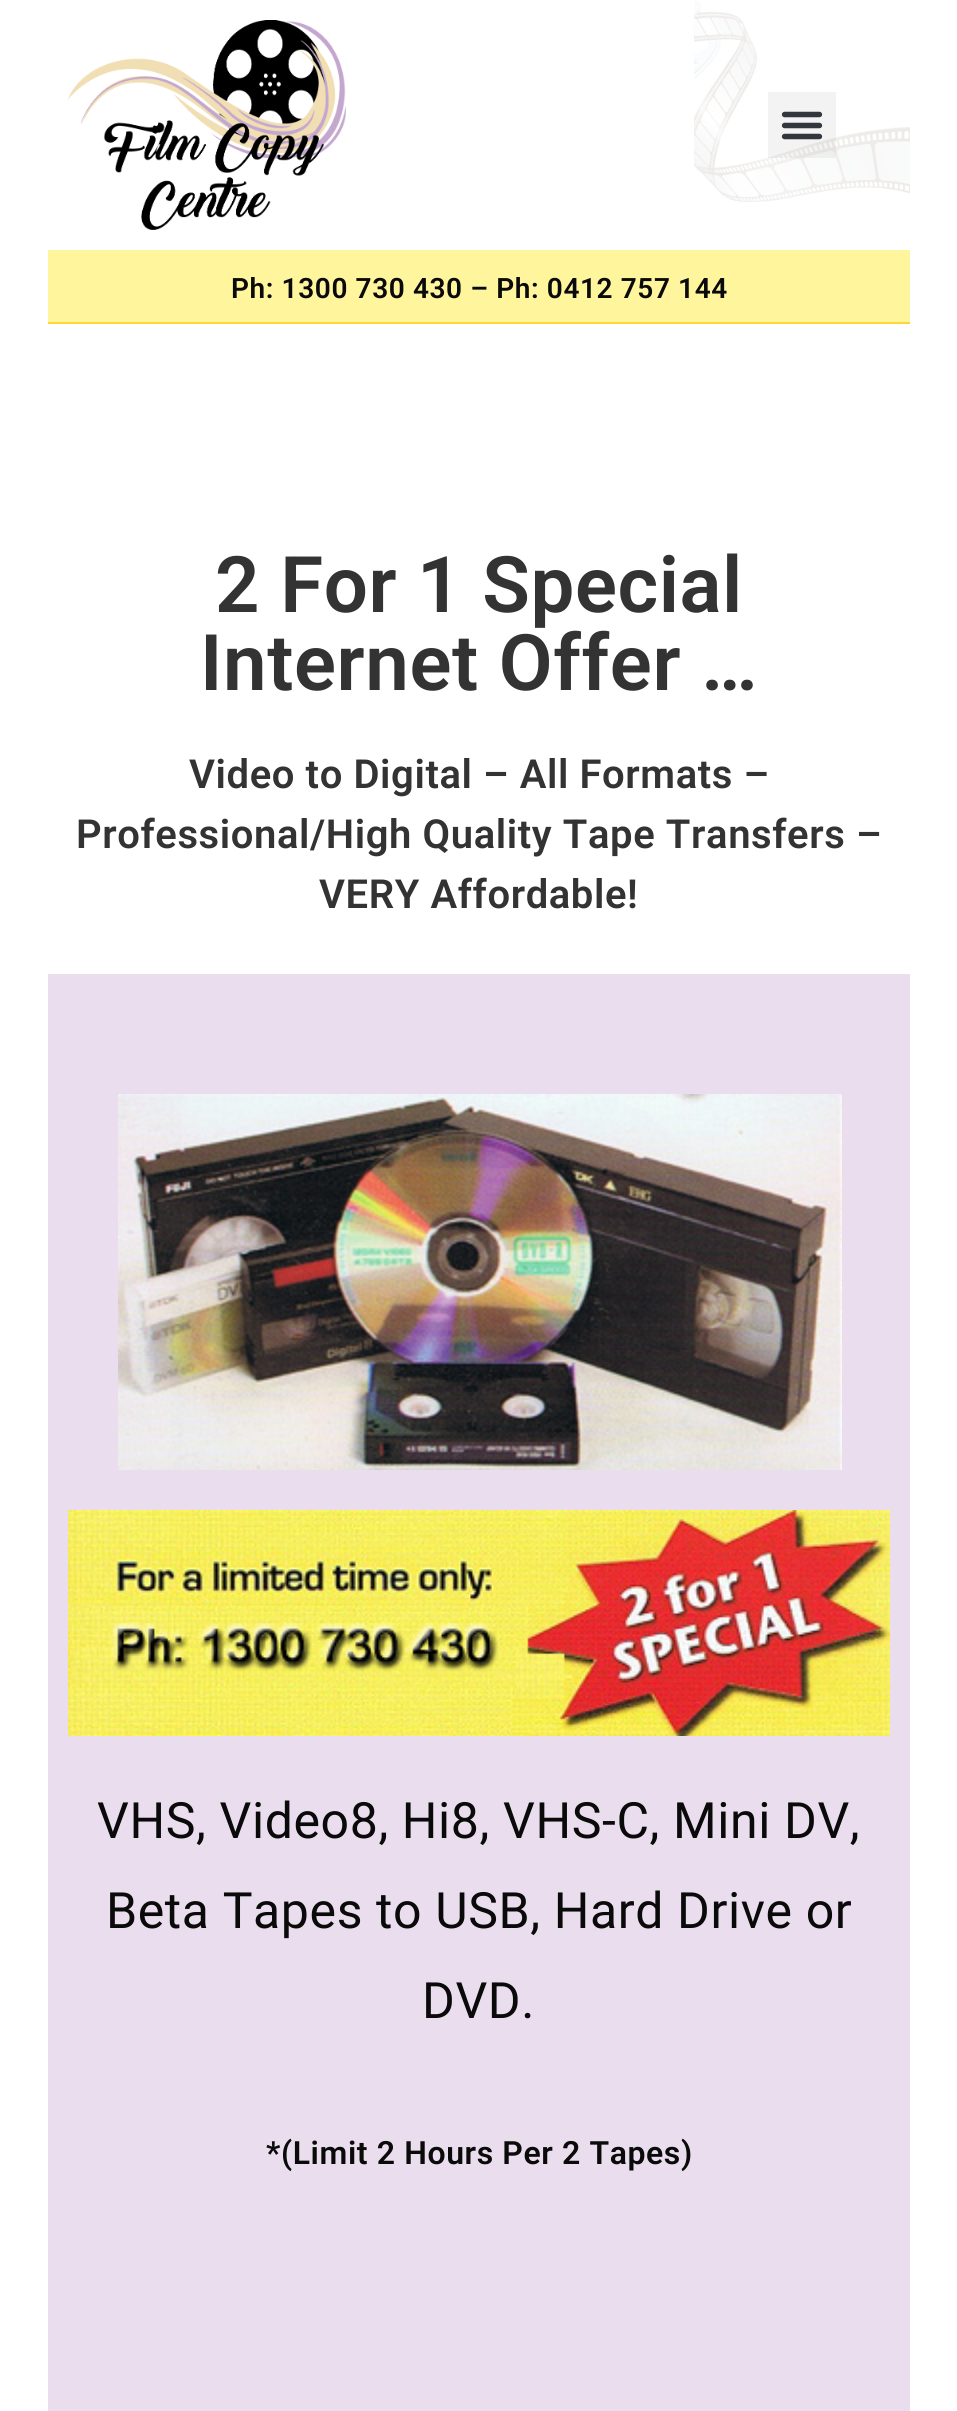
#include <cairo.h>
#include <math.h>
#include <stddef.h>


static void set_color(cairo_t *cr, unsigned color) {
    cairo_set_source_rgb(cr, (color >> 16) / 255.0, (color >> 8 & 255) / 255.0, (color & 255) / 255.0);
}

static void draw_spaced(cairo_t *cr, double x, double y, const char *s, double letter, double word) {
    cairo_move_to(cr, x, y);
    while (*s) {
        char ch[5] = {0};
        int n = 0;
        do ch[n++] = *s++; while ((*s & 0xC0) == 0x80);
        cairo_show_text(cr, ch);
        cairo_rel_move_to(cr, letter + word * (*ch == ' '), 0);
    }
}

static void fill_rect(cairo_t *cr, double x, double y, double w, double h, unsigned color) {
    set_color(cr, color);
    cairo_rectangle(cr, x, y, w, h);
    cairo_fill(cr);
}

static void draw_image(cairo_t *cr, const char *path, double x, double y, double w, double h) {
    cairo_surface_t *image = cairo_image_surface_create_from_png(path);
    cairo_save(cr);
    cairo_set_source_surface(cr, image, x, y);
    cairo_rectangle(cr, x, y, w, h);
    cairo_fill(cr);
    cairo_restore(cr);
    cairo_surface_destroy(image);
}

int main(void) {
    cairo_surface_t *surface = cairo_image_surface_create(CAIRO_FORMAT_RGB24, 957, 2411);
    cairo_t *cr = cairo_create(surface);
    cairo_font_options_t *options = cairo_font_options_create();
    cairo_font_options_set_hint_metrics(options, CAIRO_HINT_METRICS_OFF);
    cairo_font_options_set_hint_style(options, CAIRO_HINT_STYLE_NONE);
    cairo_set_font_options(cr, options);
    cairo_set_miter_limit(cr, 4);
    set_color(cr, 0xFFFFFF);
    cairo_paint(cr);
    draw_image(cr, "assets/img1.png", 68, 20, 278, 210);
    draw_image(cr, "assets/img2.png", 694, 0, 216, 203);
    cairo_set_source_rgba(cr, 0, 0, 0, 0.05);
    cairo_rectangle(cr, 768, 92, 68, 66);
    cairo_fill(cr);
    draw_image(cr, "assets/img3.png", 781, 111, 42, 29);
    fill_rect(cr, 48, 250, 862, 72, 0xFFF59D);
    fill_rect(cr, 48, 322, 862, 2, 0xFDD835);
    cairo_select_font_face(cr, "Roboto SemiBold", CAIRO_FONT_SLANT_NORMAL, CAIRO_FONT_WEIGHT_NORMAL);
    cairo_set_font_size(cr, 28);
    set_color(cr, 0x0A0A0A);
    draw_spaced(cr, 231, 298, "Ph: 1300 730 430 – Ph: 0412 757 144", 0.6, 0);
    cairo_set_font_size(cr, 78);
    set_color(cr, 0x333333);
    draw_spaced(cr, 215, 612, "2 For 1 Special", 0.6, 0);
    draw_spaced(cr, 200, 690, "Internet Offer …", 0.6, 0);
    cairo_set_font_size(cr, 40);
    draw_spaced(cr, 189, 788, "Video to Digital – All Formats –", 0.6, 0);
    draw_spaced(cr, 76, 848, "Professional/High Quality Tape Transfers –", 0.6, 0);
    draw_spaced(cr, 319, 908, "VERY Affordable!", 0.6, 0);
    fill_rect(cr, 48, 974, 862, 1437, 0xEADEEE);
    draw_image(cr, "assets/img4.png", 118, 1094, 724, 376);
    draw_image(cr, "assets/img5.png", 68, 1510, 822, 226);
    cairo_select_font_face(cr, "Roboto", CAIRO_FONT_SLANT_NORMAL, CAIRO_FONT_WEIGHT_NORMAL);
    cairo_set_font_size(cr, 50);
    set_color(cr, 0x0A0A0A);
    draw_spaced(cr, 97, 1838, "VHS, Video8, Hi8, VHS-C, Mini DV,", 0.6, 0);
    draw_spaced(cr, 106, 1928, "Beta Tapes to USB, Hard Drive or", 0.6, 0);
    draw_spaced(cr, 422, 2018, "DVD.", 0.6, 0);
    cairo_select_font_face(cr, "Roboto SemiBold", CAIRO_FONT_SLANT_NORMAL, CAIRO_FONT_WEIGHT_NORMAL);
    cairo_set_font_size(cr, 32);
    draw_spaced(cr, 266, 2164, "*(Limit 2 Hours Per 2 Tapes)", 0.6, 0);
    cairo_surface_write_to_png(surface, "output.png");
    cairo_font_options_destroy(options);
    cairo_destroy(cr);
    cairo_surface_destroy(surface);
    return 0;
}
